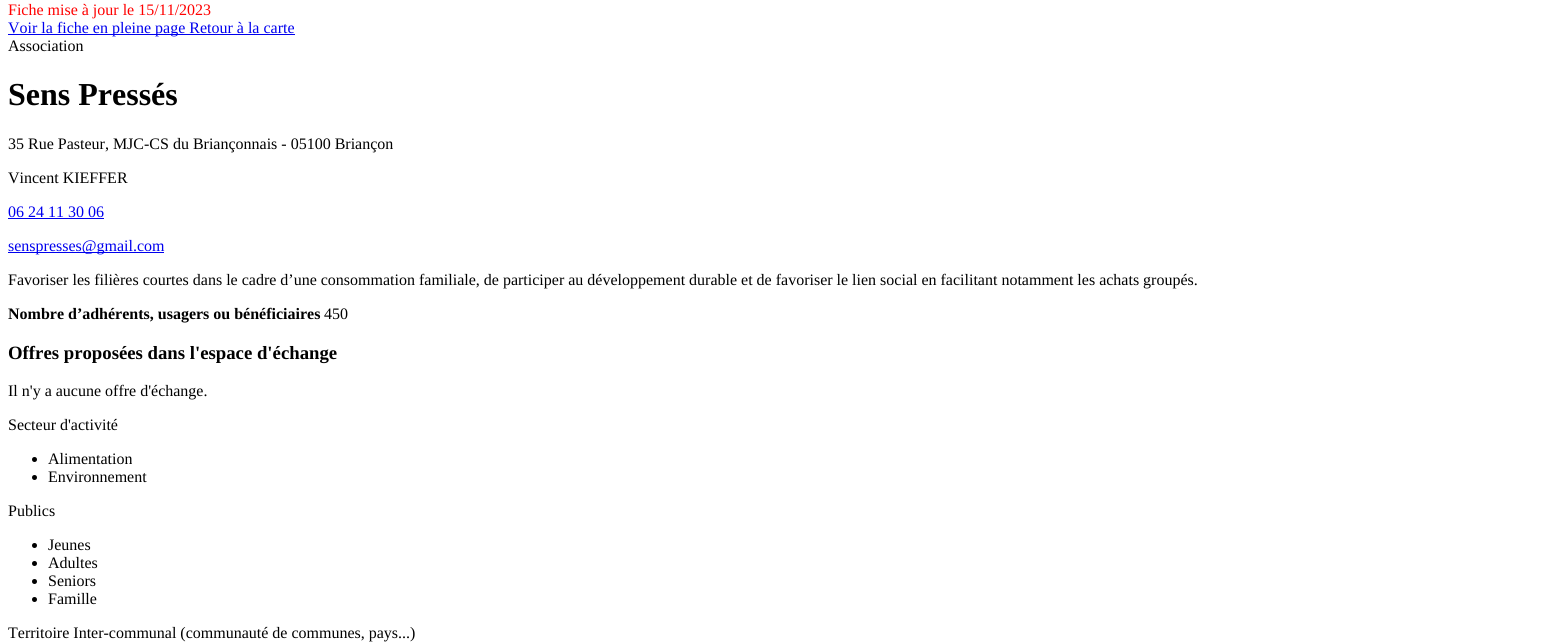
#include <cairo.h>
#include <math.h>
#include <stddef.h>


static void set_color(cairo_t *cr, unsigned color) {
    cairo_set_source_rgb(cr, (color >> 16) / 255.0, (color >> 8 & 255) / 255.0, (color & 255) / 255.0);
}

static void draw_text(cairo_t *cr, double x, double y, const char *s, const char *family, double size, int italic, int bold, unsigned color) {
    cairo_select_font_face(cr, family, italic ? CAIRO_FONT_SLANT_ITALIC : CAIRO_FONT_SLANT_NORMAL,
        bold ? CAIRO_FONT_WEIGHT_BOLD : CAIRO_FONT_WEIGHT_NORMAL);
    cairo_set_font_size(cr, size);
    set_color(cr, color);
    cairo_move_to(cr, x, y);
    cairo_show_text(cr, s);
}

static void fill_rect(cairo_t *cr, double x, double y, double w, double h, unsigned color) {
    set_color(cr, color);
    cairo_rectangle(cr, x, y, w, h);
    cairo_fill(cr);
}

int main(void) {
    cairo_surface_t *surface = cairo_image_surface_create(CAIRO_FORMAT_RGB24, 1542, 643);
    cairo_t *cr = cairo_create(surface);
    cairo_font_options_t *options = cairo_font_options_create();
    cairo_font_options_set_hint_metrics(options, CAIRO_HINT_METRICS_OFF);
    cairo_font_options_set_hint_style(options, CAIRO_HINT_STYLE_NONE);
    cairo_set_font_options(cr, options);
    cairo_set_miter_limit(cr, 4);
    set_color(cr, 0xFFFFFF);
    cairo_paint(cr);
    draw_text(cr, 8, 15, "Fiche mise à jour le 15/11/2023", "Liberation Serif", 16, 0, 0, 0xFF0000);
    fill_rect(cr, 8, 34, 287, 1, 0x0000EE);
    draw_text(cr, 8, 33, "Voir la fiche en pleine page Retour à la carte", "Liberation Serif", 16, 0, 0, 0x0000EE);
    draw_text(cr, 8, 51, "Association", "Liberation Serif", 16, 0, 0, 0x000000);
    draw_text(cr, 8, 105, "Sens Pressés", "Liberation Serif", 32, 0, 1, 0x000000);
    draw_text(cr, 8, 149, "35 Rue Pasteur, MJC-CS du Briançonnais - 05100 Briançon", "Liberation Serif", 16, 0, 0, 0x000000);
    draw_text(cr, 8, 183, "Vincent KIEFFER", "Liberation Serif", 16, 0, 0, 0x000000);
    draw_text(cr, 8, 217, "06 24 11 30 06", "Liberation Serif", 16, 0, 0, 0x0000EE);
    fill_rect(cr, 8, 218, 96, 1, 0x0000EE);
    fill_rect(cr, 8, 252, 156, 1, 0x0000EE);
    draw_text(cr, 8, 251, "senspresses@gmail.com", "Liberation Serif", 16, 0, 0, 0x0000EE);
    draw_text(cr, 8, 285, "Favoriser les filières courtes dans le cadre d’une consommation familiale, de participer au développement durable et de favoriser le lien social en facilitant notamment les achats groupés.", "Liberation Serif", 16, 0, 0, 0x000000);
    draw_text(cr, 8, 319, "Nombre d’adhérents, usagers ou bénéficiaires", "Liberation Serif", 16, 0, 1, 0x000000);
    draw_text(cr, 324, 319, "450", "Liberation Serif", 16, 0, 0, 0x000000);
    draw_text(cr, 8, 359, "Offres proposées dans l'espace d'échange", "Liberation Serif", 18.75, 0, 1, 0x000000);
    draw_text(cr, 8, 396, "Il n'y a aucune offre d'échange.", "Liberation Serif", 16, 0, 0, 0x000000);
    draw_text(cr, 8, 430, "Secteur d'activité", "Liberation Serif", 16, 0, 0, 0x000000);
    cairo_new_path(cr);
    cairo_arc(cr, 34.5, 459.5, 2.5, 0, 2 * M_PI);
    cairo_fill(cr);
    draw_text(cr, 48, 464, "Alimentation", "Liberation Serif", 16, 0, 0, 0x000000);
    cairo_new_path(cr);
    cairo_arc(cr, 34.5, 477.5, 2.5, 0, 2 * M_PI);
    cairo_fill(cr);
    draw_text(cr, 48, 482, "Environnement", "Liberation Serif", 16, 0, 0, 0x000000);
    draw_text(cr, 8, 516, "Publics", "Liberation Serif", 16, 0, 0, 0x000000);
    cairo_new_path(cr);
    cairo_arc(cr, 34.5, 545.5, 2.5, 0, 2 * M_PI);
    cairo_fill(cr);
    draw_text(cr, 48, 550, "Jeunes", "Liberation Serif", 16, 0, 0, 0x000000);
    cairo_new_path(cr);
    cairo_arc(cr, 34.5, 563.5, 2.5, 0, 2 * M_PI);
    cairo_fill(cr);
    draw_text(cr, 48, 568, "Adultes", "Liberation Serif", 16, 0, 0, 0x000000);
    cairo_new_path(cr);
    cairo_arc(cr, 34.5, 581.5, 2.5, 0, 2 * M_PI);
    cairo_fill(cr);
    draw_text(cr, 48, 586, "Seniors", "Liberation Serif", 16, 0, 0, 0x000000);
    cairo_new_path(cr);
    cairo_arc(cr, 34.5, 599.5, 2.5, 0, 2 * M_PI);
    cairo_fill(cr);
    draw_text(cr, 48, 604, "Famille", "Liberation Serif", 16, 0, 0, 0x000000);
    draw_text(cr, 8, 638, "Territoire Inter-communal (communauté de communes, pays...)", "Liberation Serif", 16, 0, 0, 0x000000);
    cairo_surface_write_to_png(surface, "output.png");
    cairo_font_options_destroy(options);
    cairo_destroy(cr);
    cairo_surface_destroy(surface);
    return 0;
}
